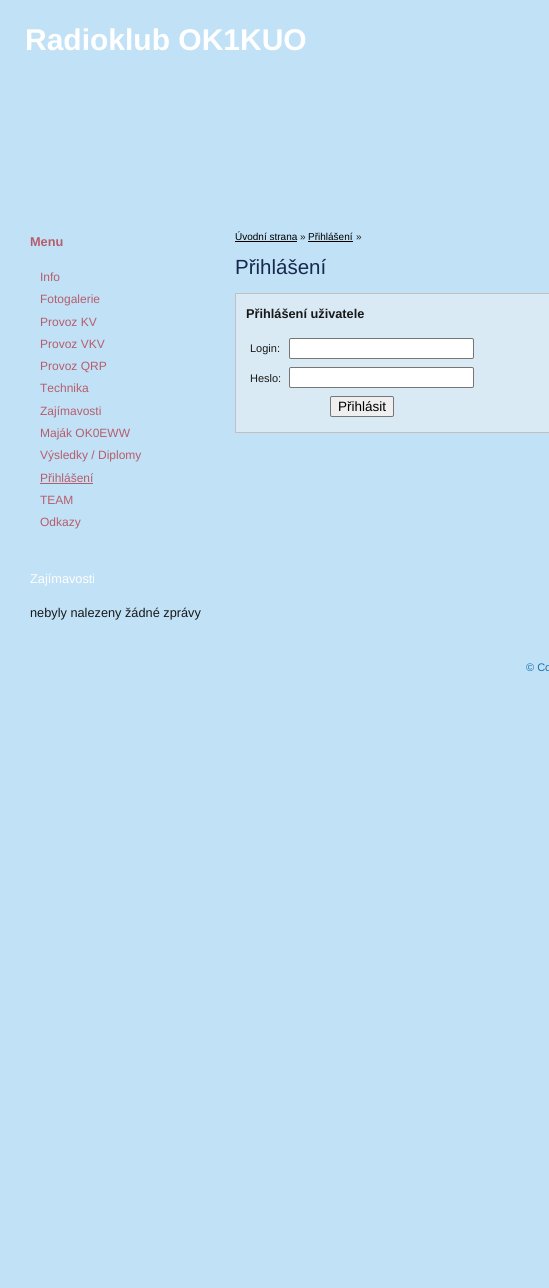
#include <cairo.h>
#include <math.h>
#include <stddef.h>


static void set_color(cairo_t *cr, unsigned color) {
    cairo_set_source_rgb(cr, (color >> 16) / 255.0, (color >> 8 & 255) / 255.0, (color & 255) / 255.0);
}

static void draw_text(cairo_t *cr, double x, double y, const char *s, const char *family, double size, int italic, int bold, unsigned color) {
    cairo_select_font_face(cr, family, italic ? CAIRO_FONT_SLANT_ITALIC : CAIRO_FONT_SLANT_NORMAL,
        bold ? CAIRO_FONT_WEIGHT_BOLD : CAIRO_FONT_WEIGHT_NORMAL);
    cairo_set_font_size(cr, size);
    set_color(cr, color);
    cairo_move_to(cr, x, y);
    cairo_show_text(cr, s);
}

static void fill_rect(cairo_t *cr, double x, double y, double w, double h, unsigned color) {
    set_color(cr, color);
    cairo_rectangle(cr, x, y, w, h);
    cairo_fill(cr);
}

static void rounded_rect(cairo_t *cr, double x, double y, double w, double h, double r) {
    cairo_new_sub_path(cr);
    cairo_arc(cr, x + w - r, y + h - r, r, 0, M_PI / 2);
    cairo_arc(cr, x + r, y + h - r, r, M_PI / 2, M_PI);
    cairo_arc(cr, x + r, y + r, r, M_PI, 1.5 * M_PI);
    cairo_arc(cr, x + w - r, y + r, r, 1.5 * M_PI, 2 * M_PI);
    cairo_close_path(cr);
}

int main(void) {
    cairo_surface_t *surface = cairo_image_surface_create(CAIRO_FORMAT_RGB24, 549, 1288);
    cairo_t *cr = cairo_create(surface);
    cairo_font_options_t *options = cairo_font_options_create();
    cairo_font_options_set_hint_metrics(options, CAIRO_HINT_METRICS_OFF);
    cairo_font_options_set_hint_style(options, CAIRO_HINT_STYLE_NONE);
    cairo_set_font_options(cr, options);
    cairo_set_miter_limit(cr, 4);
    set_color(cr, 0xC1E1F6);
    cairo_paint(cr);
    draw_text(cr, 25, 50, "Radioklub OK1KUO", "Liberation Sans", 30, 0, 1, 0xFFFFFF);
    draw_text(cr, 30, 246, "Menu", "Liberation Sans", 12.75, 0, 1, 0xB65D6C);
    draw_text(cr, 40, 281, "Info", "Liberation Sans", 12, 0, 0, 0xB65D6C);
    draw_text(cr, 40, 303, "Fotogalerie", "Liberation Sans", 12, 0, 0, 0xB65D6C);
    draw_text(cr, 40, 326, "Provoz KV", "Liberation Sans", 12, 0, 0, 0xB65D6C);
    draw_text(cr, 40, 348, "Provoz VKV", "Liberation Sans", 12, 0, 0, 0xB65D6C);
    draw_text(cr, 40, 370, "Provoz QRP", "Liberation Sans", 12, 0, 0, 0xB65D6C);
    draw_text(cr, 40, 392, "Technika", "Liberation Sans", 12, 0, 0, 0xB65D6C);
    draw_text(cr, 40, 415, "Zajímavosti", "Liberation Sans", 12, 0, 0, 0xB65D6C);
    draw_text(cr, 40, 437, "Maják OK0EWW", "Liberation Sans", 12, 0, 0, 0xB65D6C);
    draw_text(cr, 40, 459, "Výsledky / Diplomy", "Liberation Sans", 12, 0, 0, 0xB65D6C);
    draw_text(cr, 40, 482, "Přihlášení", "Liberation Sans", 12, 0, 0, 0xB65D6C);
    fill_rect(cr, 40, 483, 53, 1, 0xB65D6C);
    draw_text(cr, 40, 504, "TEAM", "Liberation Sans", 12, 0, 0, 0xB65D6C);
    draw_text(cr, 40, 526, "Odkazy", "Liberation Sans", 12, 0, 0, 0xB65D6C);
    draw_text(cr, 30, 583, "Zajímavosti", "Liberation Sans", 12.75, 0, 0, 0xFFFFFF);
    draw_text(cr, 30, 617, "nebyly nalezeny žádné zprávy", "Liberation Sans", 12.75, 0, 0, 0x181819);
    draw_text(cr, 235, 240, "Úvodní strana", "Liberation Sans", 10, 0, 0, 0x000000);
    fill_rect(cr, 235, 241, 62, 1, 0x000000);
    draw_text(cr, 300, 240, "»", "Liberation Sans", 10, 0, 0, 0x181819);
    draw_text(cr, 308, 240, "Přihlášení", "Liberation Sans", 10, 0, 0, 0x000000);
    fill_rect(cr, 308, 241, 45, 1, 0x000000);
    draw_text(cr, 356, 240, "»", "Liberation Sans", 10, 0, 0, 0x181819);
    draw_text(cr, 235, 274, "Přihlášení", "Liberation Sans", 20.5, 0, 0, 0x16284E);
    set_color(cr, 0xD9EAF4);
    cairo_rectangle(cr, 235.5, 293.5, 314, 139);
    cairo_fill_preserve(cr);
    set_color(cr, 0xC0C0C0);
    cairo_set_line_width(cr, 1);
    cairo_stroke(cr);
    draw_text(cr, 246, 318, "Přihlášení uživatele", "Liberation Sans", 12.75, 0, 1, 0x181819);
    draw_text(cr, 250, 352, "Login:", "Liberation Sans", 11, 0, 0, 0x181819);
    set_color(cr, 0xFFFFFF);
    rounded_rect(cr, 289.5, 338.5, 184, 20, 1.5);
    cairo_fill_preserve(cr);
    set_color(cr, 0x767676);
    cairo_stroke(cr);
    draw_text(cr, 250, 382, "Heslo:", "Liberation Sans", 11, 0, 0, 0x181819);
    set_color(cr, 0xFFFFFF);
    rounded_rect(cr, 289.5, 367.5, 184, 20, 1.5);
    cairo_fill_preserve(cr);
    set_color(cr, 0x767676);
    cairo_stroke(cr);
    set_color(cr, 0xEFEFEF);
    rounded_rect(cr, 330.5, 396.5, 63, 20, 1.5);
    cairo_fill_preserve(cr);
    set_color(cr, 0x767676);
    cairo_stroke(cr);
    draw_text(cr, 338, 411, "Přihlásit", "Liberation Sans", 13.5, 0, 0, 0x000000);
    draw_text(cr, 526, 671, "© Co", "Liberation Sans", 11, 0, 0, 0x1572AF);
    cairo_surface_write_to_png(surface, "output.png");
    cairo_font_options_destroy(options);
    cairo_destroy(cr);
    cairo_surface_destroy(surface);
    return 0;
}
